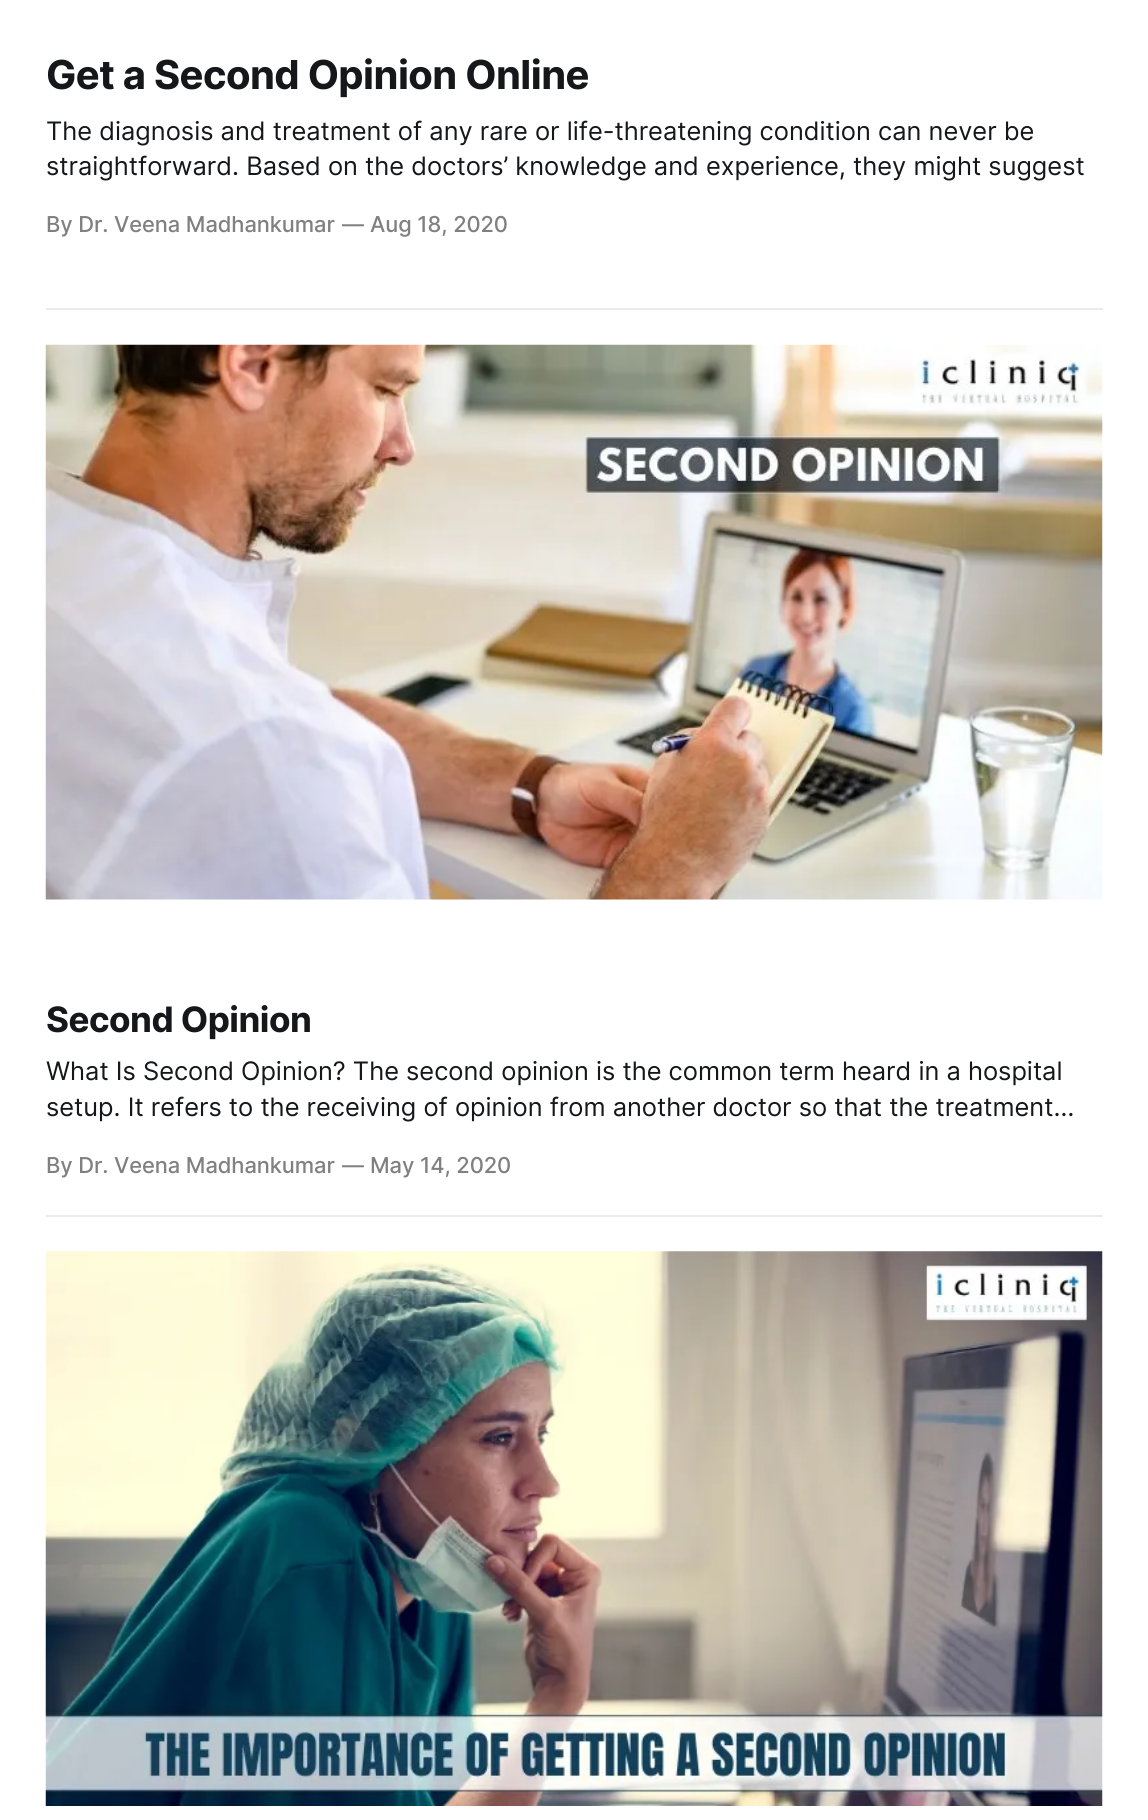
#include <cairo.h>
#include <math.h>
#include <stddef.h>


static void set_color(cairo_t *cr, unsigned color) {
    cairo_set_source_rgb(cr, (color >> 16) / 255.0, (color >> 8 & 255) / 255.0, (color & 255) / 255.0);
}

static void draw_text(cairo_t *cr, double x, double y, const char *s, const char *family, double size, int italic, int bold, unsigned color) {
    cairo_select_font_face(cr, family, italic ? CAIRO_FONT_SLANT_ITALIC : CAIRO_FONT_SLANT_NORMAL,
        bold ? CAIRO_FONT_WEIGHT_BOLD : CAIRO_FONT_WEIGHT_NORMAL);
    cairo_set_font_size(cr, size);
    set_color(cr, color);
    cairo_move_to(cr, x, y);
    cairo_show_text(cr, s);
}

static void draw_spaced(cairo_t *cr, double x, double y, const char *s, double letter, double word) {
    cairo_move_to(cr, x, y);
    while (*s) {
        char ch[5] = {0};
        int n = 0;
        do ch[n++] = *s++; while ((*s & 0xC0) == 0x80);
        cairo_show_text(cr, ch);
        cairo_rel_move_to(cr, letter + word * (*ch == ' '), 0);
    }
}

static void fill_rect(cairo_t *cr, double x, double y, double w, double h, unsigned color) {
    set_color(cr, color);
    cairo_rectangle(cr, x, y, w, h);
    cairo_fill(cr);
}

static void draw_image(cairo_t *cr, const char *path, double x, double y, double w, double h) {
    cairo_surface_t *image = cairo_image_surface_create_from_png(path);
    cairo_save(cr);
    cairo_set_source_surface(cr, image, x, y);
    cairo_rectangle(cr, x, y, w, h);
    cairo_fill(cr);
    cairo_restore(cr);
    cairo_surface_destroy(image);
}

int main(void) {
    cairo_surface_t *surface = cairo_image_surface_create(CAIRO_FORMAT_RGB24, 1148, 1820);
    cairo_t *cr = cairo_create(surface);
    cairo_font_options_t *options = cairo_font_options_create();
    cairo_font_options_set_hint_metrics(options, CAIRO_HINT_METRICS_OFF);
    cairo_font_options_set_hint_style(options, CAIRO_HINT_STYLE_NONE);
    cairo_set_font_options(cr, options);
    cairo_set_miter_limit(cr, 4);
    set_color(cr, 0xFFFFFF);
    cairo_paint(cr);
    cairo_select_font_face(cr, "Inter", CAIRO_FONT_SLANT_NORMAL, CAIRO_FONT_WEIGHT_BOLD);
    cairo_set_font_size(cr, 39.9);
    set_color(cr, 0x15171A);
    draw_spaced(cr, 46, 89, "Get a Second Opinion Online", -0.55, 0);
    draw_text(cr, 46, 140, "The diagnosis and treatment of any rare or life-threatening condition can never be", "Inter", 25.4, 0, 0, 0x15171A);
    draw_text(cr, 46, 175, "straightforward. Based on the doctors’ knowledge and experience, they might suggest", "Inter", 25.4, 0, 0, 0x15171A);
    cairo_select_font_face(cr, "Inter Medium", CAIRO_FONT_SLANT_NORMAL, CAIRO_FONT_WEIGHT_NORMAL);
    cairo_set_font_size(cr, 21.9);
    set_color(cr, 0x808080);
    draw_spaced(cr, 46, 232, "By Dr. Veena Madhankumar", -0.1, 0);
    draw_spaced(cr, 342, 232, "—", -0.1, 0);
    draw_spaced(cr, 370, 232, "Aug 18, 2020", -0.1, 0);
    fill_rect(cr, 46, 308, 1057, 2, 0xEBEBEB);
    draw_image(cr, "assets/img1.png", 45, 344, 1058, 556);
    cairo_select_font_face(cr, "Inter", CAIRO_FONT_SLANT_NORMAL, CAIRO_FONT_WEIGHT_BOLD);
    cairo_set_font_size(cr, 35);
    set_color(cr, 0x15171A);
    draw_spaced(cr, 46, 1032, "Second Opinion", -0.5, 0);
    draw_text(cr, 46, 1080, "What Is Second Opinion? The second opinion is the common term heard in a hospital", "Inter", 25.4, 0, 0, 0x15171A);
    draw_text(cr, 46, 1116, "setup. It refers to the receiving of opinion from another doctor so that the treatment…", "Inter", 25.4, 0, 0, 0x15171A);
    cairo_select_font_face(cr, "Inter Medium", CAIRO_FONT_SLANT_NORMAL, CAIRO_FONT_WEIGHT_NORMAL);
    cairo_set_font_size(cr, 21.9);
    set_color(cr, 0x808080);
    draw_spaced(cr, 46, 1173, "By Dr. Veena Madhankumar", -0.1, 0);
    draw_spaced(cr, 342, 1173, "—", -0.1, 0);
    draw_spaced(cr, 370, 1173, "May 14, 2020", -0.1, 0);
    fill_rect(cr, 46, 1215, 1057, 2, 0xEBEBEB);
    draw_image(cr, "assets/img2.png", 45, 1251, 1058, 555);
    cairo_surface_write_to_png(surface, "output.png");
    cairo_font_options_destroy(options);
    cairo_destroy(cr);
    cairo_surface_destroy(surface);
    return 0;
}
